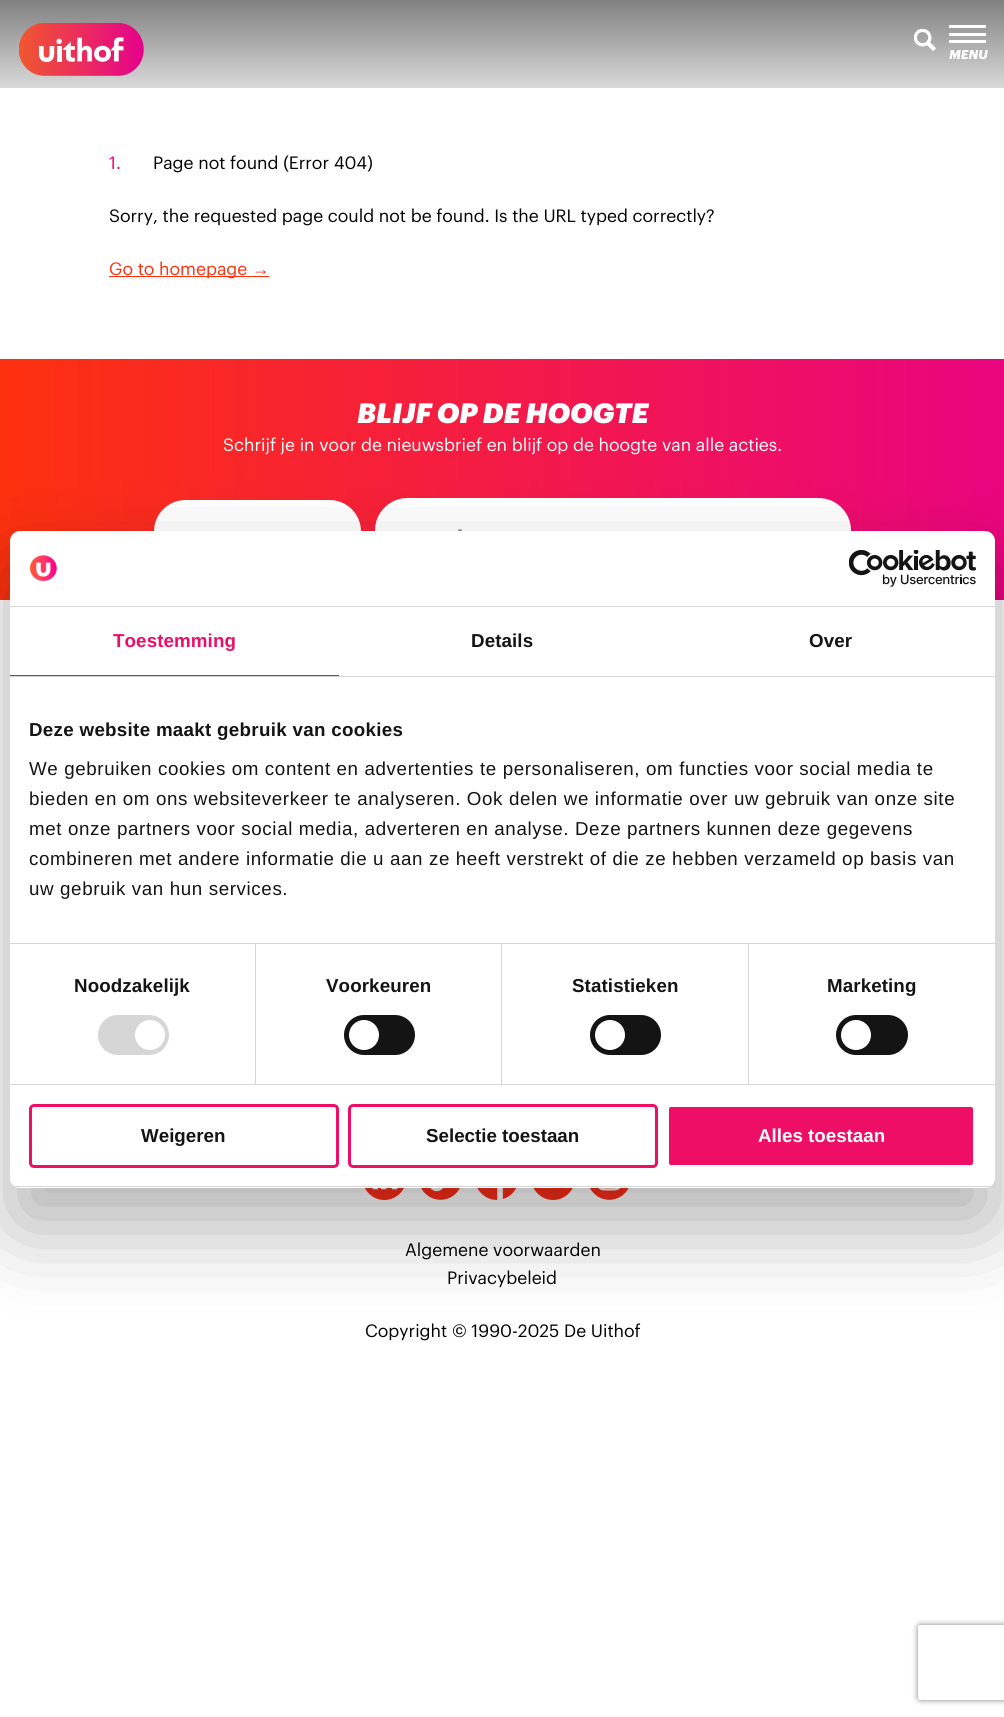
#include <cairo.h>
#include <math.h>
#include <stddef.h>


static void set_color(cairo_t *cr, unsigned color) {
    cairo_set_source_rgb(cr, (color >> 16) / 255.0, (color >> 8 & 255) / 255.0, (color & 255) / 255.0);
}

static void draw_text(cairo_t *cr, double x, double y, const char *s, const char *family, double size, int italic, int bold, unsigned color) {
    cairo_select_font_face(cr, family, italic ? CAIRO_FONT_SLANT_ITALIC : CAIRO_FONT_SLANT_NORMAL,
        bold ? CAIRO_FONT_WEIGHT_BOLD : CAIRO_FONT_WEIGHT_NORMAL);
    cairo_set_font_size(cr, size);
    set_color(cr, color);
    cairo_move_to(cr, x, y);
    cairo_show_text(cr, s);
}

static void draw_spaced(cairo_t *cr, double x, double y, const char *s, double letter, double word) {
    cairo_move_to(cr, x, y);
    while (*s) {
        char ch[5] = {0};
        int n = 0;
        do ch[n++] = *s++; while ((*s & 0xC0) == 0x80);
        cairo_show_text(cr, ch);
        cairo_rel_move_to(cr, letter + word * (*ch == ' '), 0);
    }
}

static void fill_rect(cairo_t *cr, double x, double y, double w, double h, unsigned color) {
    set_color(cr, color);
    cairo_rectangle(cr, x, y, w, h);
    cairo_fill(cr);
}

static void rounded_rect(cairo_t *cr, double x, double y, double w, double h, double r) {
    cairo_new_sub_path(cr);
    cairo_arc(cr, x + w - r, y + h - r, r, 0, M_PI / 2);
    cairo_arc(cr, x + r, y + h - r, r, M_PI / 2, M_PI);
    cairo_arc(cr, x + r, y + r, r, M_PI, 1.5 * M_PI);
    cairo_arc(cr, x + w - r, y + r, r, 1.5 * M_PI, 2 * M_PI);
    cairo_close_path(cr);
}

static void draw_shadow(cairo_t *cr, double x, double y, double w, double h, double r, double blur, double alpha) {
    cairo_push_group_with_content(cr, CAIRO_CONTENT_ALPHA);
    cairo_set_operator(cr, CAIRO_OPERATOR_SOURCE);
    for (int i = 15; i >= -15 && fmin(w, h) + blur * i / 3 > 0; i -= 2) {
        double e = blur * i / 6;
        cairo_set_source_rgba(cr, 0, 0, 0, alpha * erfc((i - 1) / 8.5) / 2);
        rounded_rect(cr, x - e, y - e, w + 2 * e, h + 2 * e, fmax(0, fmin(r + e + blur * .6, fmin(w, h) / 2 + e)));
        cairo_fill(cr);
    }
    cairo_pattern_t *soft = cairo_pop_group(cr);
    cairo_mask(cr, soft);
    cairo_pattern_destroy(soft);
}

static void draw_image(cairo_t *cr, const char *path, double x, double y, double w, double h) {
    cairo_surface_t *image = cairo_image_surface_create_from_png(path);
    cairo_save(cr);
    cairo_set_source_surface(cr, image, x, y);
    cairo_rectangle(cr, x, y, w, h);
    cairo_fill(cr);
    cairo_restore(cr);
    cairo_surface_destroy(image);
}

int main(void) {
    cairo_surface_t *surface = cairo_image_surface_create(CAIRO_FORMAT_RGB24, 1004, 1717);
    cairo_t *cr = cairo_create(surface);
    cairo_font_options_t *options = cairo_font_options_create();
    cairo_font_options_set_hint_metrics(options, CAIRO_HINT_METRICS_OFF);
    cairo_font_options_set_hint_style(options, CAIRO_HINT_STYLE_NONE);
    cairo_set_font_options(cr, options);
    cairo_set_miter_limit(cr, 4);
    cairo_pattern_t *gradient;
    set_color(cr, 0xFFFFFF);
    cairo_paint(cr);
    gradient = cairo_pattern_create_linear(0.6, 0, 0.6, 250);
    cairo_pattern_add_color_stop_rgba(gradient, 0, 0.502, 0.502, 0.502, 1);
    cairo_pattern_add_color_stop_rgba(gradient, 0.5, 1, 1, 1, 1);
    cairo_pattern_add_color_stop_rgba(gradient, 0.5, 0.502, 0.502, 0.502, 1);
    cairo_pattern_add_color_stop_rgba(gradient, 1, 0.502, 0.502, 0.502, 1);
    cairo_set_source(cr, gradient);
    cairo_pattern_destroy(gradient);
    cairo_rectangle(cr, 0, 0, 1004, 88);
    cairo_fill(cr);
    draw_image(cr, "assets/img1.png", 19, 22, 125, 54);
    draw_image(cr, "assets/img2.png", 914, 29, 22, 22);
    fill_rect(cr, 949, 25, 37, 3, 0xFFFFFF);
    fill_rect(cr, 949, 33, 37, 3, 0xFFFFFF);
    fill_rect(cr, 949, 40, 37, 3, 0xFFFFFF);
    draw_text(cr, 949, 59, "MENU", "Graphik", 12.5, 1, 1, 0xFFFFFF);
    draw_text(cr, 109, 169, "1.", "Graphik", 17.5, 0, 0, 0xEA047F);
    draw_text(cr, 153, 169, "Page not found (Error 404)", "Graphik", 17.5, 0, 0, 0x000000);
    draw_text(cr, 109, 222, "Sorry, the requested page could not be found. Is the URL typed correctly?", "Graphik", 17.5, 0, 0, 0x000000);
    fill_rect(cr, 109, 276, 160, 1, 0xFE310E);
    draw_text(cr, 109, 275, "Go to homepage", "Graphik", 17.5, 0, 0, 0xFE310E);
    draw_text(cr, 252, 275, "→", "Liberation Sans", 17.5, 0, 0, 0xFE310E);
    gradient = cairo_pattern_create_linear(0, 479, 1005, 479);
    cairo_pattern_add_color_stop_rgba(gradient, 0, 0.996, 0.192, 0.055, 1);
    cairo_pattern_add_color_stop_rgba(gradient, 1, 0.918, 0.016, 0.498, 1);
    cairo_set_source(cr, gradient);
    cairo_pattern_destroy(gradient);
    cairo_rectangle(cr, 0, 359, 1004, 241);
    cairo_fill(cr);
    draw_text(cr, 357, 423, "BLIJF OP DE HOOGTE", "Graphik Black", 27.5, 1, 0, 0xFFFFFF);
    draw_text(cr, 223, 451, "Schrijf je in voor de nieuwsbrief en blijf op de hoogte van alle acties.", "Graphik", 17.5, 0, 0, 0xFFFFFF);
    rounded_rect(cr, 154, 500, 207, 63, 31.5);
    cairo_fill(cr);
    rounded_rect(cr, 375, 498, 476, 65, 32.5);
    cairo_fill(cr);
    draw_text(cr, 457, 535, "-", "Graphik", 17.5, 0, 0, 0x838080);
    cairo_save(cr);
    cairo_set_fill_rule(cr, CAIRO_FILL_RULE_EVEN_ODD);
    cairo_new_path(cr);
    cairo_move_to(cr, 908, 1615);
    cairo_line_to(cr, 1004, 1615);
    cairo_line_to(cr, 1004, 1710);
    cairo_line_to(cr, 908, 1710);
    cairo_close_path(cr);
    cairo_move_to(cr, 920.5, 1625);
    cairo_line_to(cr, 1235.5, 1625);
    cairo_curve_to(cr, 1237, 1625, 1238, 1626, 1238, 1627.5);
    cairo_line_to(cr, 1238, 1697.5);
    cairo_curve_to(cr, 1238, 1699, 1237, 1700, 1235.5, 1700);
    cairo_line_to(cr, 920.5, 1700);
    cairo_curve_to(cr, 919, 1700, 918, 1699, 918, 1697.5);
    cairo_line_to(cr, 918, 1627.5);
    cairo_curve_to(cr, 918, 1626, 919, 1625, 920.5, 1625);
    cairo_close_path(cr);
    cairo_clip(cr);
    set_color(cr, 0x808080);
    draw_shadow(cr, 918, 1625, 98, 75, 2.5, 3, 1);
    cairo_restore(cr);
    draw_image(cr, "assets/img3.png", 365, 1188, 39, 12);
    draw_image(cr, "assets/img4.png", 421, 1188, 39, 12);
    draw_image(cr, "assets/img5.png", 477, 1188, 40, 12);
    draw_image(cr, "assets/img6.png", 533, 1188, 40, 12);
    draw_image(cr, "assets/img7.png", 590, 1188, 39, 12);
    draw_text(cr, 405, 1256, "Algemene voorwaarden", "Graphik", 17.5, 0, 0, 0x000000);
    draw_text(cr, 447, 1284, "Privacybeleid", "Graphik", 17.5, 0, 0, 0x000000);
    draw_text(cr, 365, 1337, "Copyright © 1990-2025 De Uithof", "Graphik", 17.5, 0, 0, 0x000000);
    set_color(cr, 0x000000);
    draw_shadow(cr, 10, 571, 985, 657, 10, 42.5, 0.3);
    set_color(cr, 0xFFFFFF);
    rounded_rect(cr, 10, 531, 985, 657, 10);
    cairo_fill(cr);
    fill_rect(cr, 10, 606, 985, 1, 0xD6D6D6);
    draw_image(cr, "assets/img8.png", 29, 555, 29, 27);
    draw_image(cr, "assets/img9.png", 849, 550, 127, 37);
    fill_rect(cr, 10, 676, 985, 1, 0xD6D6D6);
    fill_rect(cr, 10, 675, 329, 1, 0xEE0E66);
    cairo_select_font_face(cr, "Liberation Sans", CAIRO_FONT_SLANT_NORMAL, CAIRO_FONT_WEIGHT_BOLD);
    cairo_set_font_size(cr, 18.75);
    draw_spaced(cr, 113, 647, "Toestemming", 0.1, 0);
    set_color(cr, 0x141414);
    draw_spaced(cr, 471, 647, "Details", 0.1, 0);
    draw_spaced(cr, 809, 647, "Over", 0.1, 0);
    fill_rect(cr, 10, 943, 985, 1, 0xD6D6D6);
    set_color(cr, 0x141414);
    draw_spaced(cr, 29, 736, "Deze website maakt gebruik van cookies", 0.3, 0);
    cairo_select_font_face(cr, "Liberation Sans", CAIRO_FONT_SLANT_NORMAL, CAIRO_FONT_WEIGHT_NORMAL);
    draw_spaced(cr, 29, 775, "We gebruiken cookies om content en advertenties te personaliseren, om functies voor social media te", 0.62, 0);
    draw_spaced(cr, 29, 805, "bieden en om ons websiteverkeer te analyseren. Ook delen we informatie over uw gebruik van onze site", 0.62, 0);
    draw_spaced(cr, 29, 835, "met onze partners voor social media, adverteren en analyse. Deze partners kunnen deze gegevens", 0.62, 0);
    draw_spaced(cr, 29, 865, "combineren met andere informatie die u aan ze heeft verstrekt of die ze hebben verzameld op basis van", 0.62, 0);
    draw_spaced(cr, 29, 895, "uw gebruik van hun services.", 0.62, 0);
    fill_rect(cr, 10, 1084, 985, 1, 0xD6D6D6);
    fill_rect(cr, 255, 944, 1, 140, 0xD6D6D6);
    cairo_select_font_face(cr, "Liberation Sans", CAIRO_FONT_SLANT_NORMAL, CAIRO_FONT_WEIGHT_BOLD);
    set_color(cr, 0x141414);
    draw_spaced(cr, 74, 992, "Noodzakelijk", 0.1, 0);
    set_color(cr, 0xD6D6D6);
    rounded_rect(cr, 98, 1015, 71, 40, 20);
    cairo_fill(cr);
    set_color(cr, 0xFFFFFF);
    cairo_arc(cr, 150, 1035, 15, 0, 2 * M_PI);
    cairo_fill(cr);
    fill_rect(cr, 501, 944, 1, 140, 0xD6D6D6);
    set_color(cr, 0x141414);
    draw_spaced(cr, 326, 992, "Voorkeuren", 0.1, 0);
    rounded_rect(cr, 344, 1015, 71, 40, 20);
    cairo_fill(cr);
    set_color(cr, 0xFFFFFF);
    cairo_arc(cr, 364, 1035, 15, 0, 2 * M_PI);
    cairo_fill(cr);
    fill_rect(cr, 748, 944, 1, 140, 0xD6D6D6);
    set_color(cr, 0x141414);
    draw_spaced(cr, 572, 992, "Statistieken", 0.1, 0);
    rounded_rect(cr, 590, 1015, 71, 40, 20);
    cairo_fill(cr);
    set_color(cr, 0xFFFFFF);
    cairo_arc(cr, 610, 1035, 15, 0, 2 * M_PI);
    cairo_fill(cr);
    set_color(cr, 0x141414);
    draw_spaced(cr, 827, 992, "Marketing", 0.1, 0);
    rounded_rect(cr, 836, 1015, 72, 40, 20);
    cairo_fill(cr);
    set_color(cr, 0xFFFFFF);
    cairo_arc(cr, 856, 1035, 15, 0, 2 * M_PI);
    cairo_fill(cr);
    cairo_save(cr);
    rounded_rect(cr, 10, 531, 985, 657, 10);
    cairo_clip(cr);
    fill_rect(cr, 10, 1186, 985, 1, 0xD6D6D6);
    cairo_restore(cr);
    rounded_rect(cr, 30.5, 1105.5, 307, 61, 3.5);
    set_color(cr, 0xEE0E66);
    cairo_set_line_width(cr, 3);
    cairo_stroke(cr);
    draw_text(cr, 141, 1142, "Weigeren", "Liberation Sans", 18.75, 0, 1, 0x141414);
    rounded_rect(cr, 349.5, 1105.5, 307, 61, 3.5);
    set_color(cr, 0xEE0E66);
    cairo_stroke(cr);
    draw_text(cr, 426, 1142, "Selectie toestaan", "Liberation Sans", 18.75, 0, 1, 0x141414);
    set_color(cr, 0xEE0E66);
    rounded_rect(cr, 667.5, 1105.5, 307, 61, 3.5);
    cairo_fill_preserve(cr);
    set_color(cr, 0xFFFFFF);
    cairo_stroke(cr);
    draw_text(cr, 758, 1142, "Alles toestaan", "Liberation Sans", 18.75, 0, 1, 0xFFFFFF);
    cairo_surface_write_to_png(surface, "output.png");
    cairo_font_options_destroy(options);
    cairo_destroy(cr);
    cairo_surface_destroy(surface);
    return 0;
}
